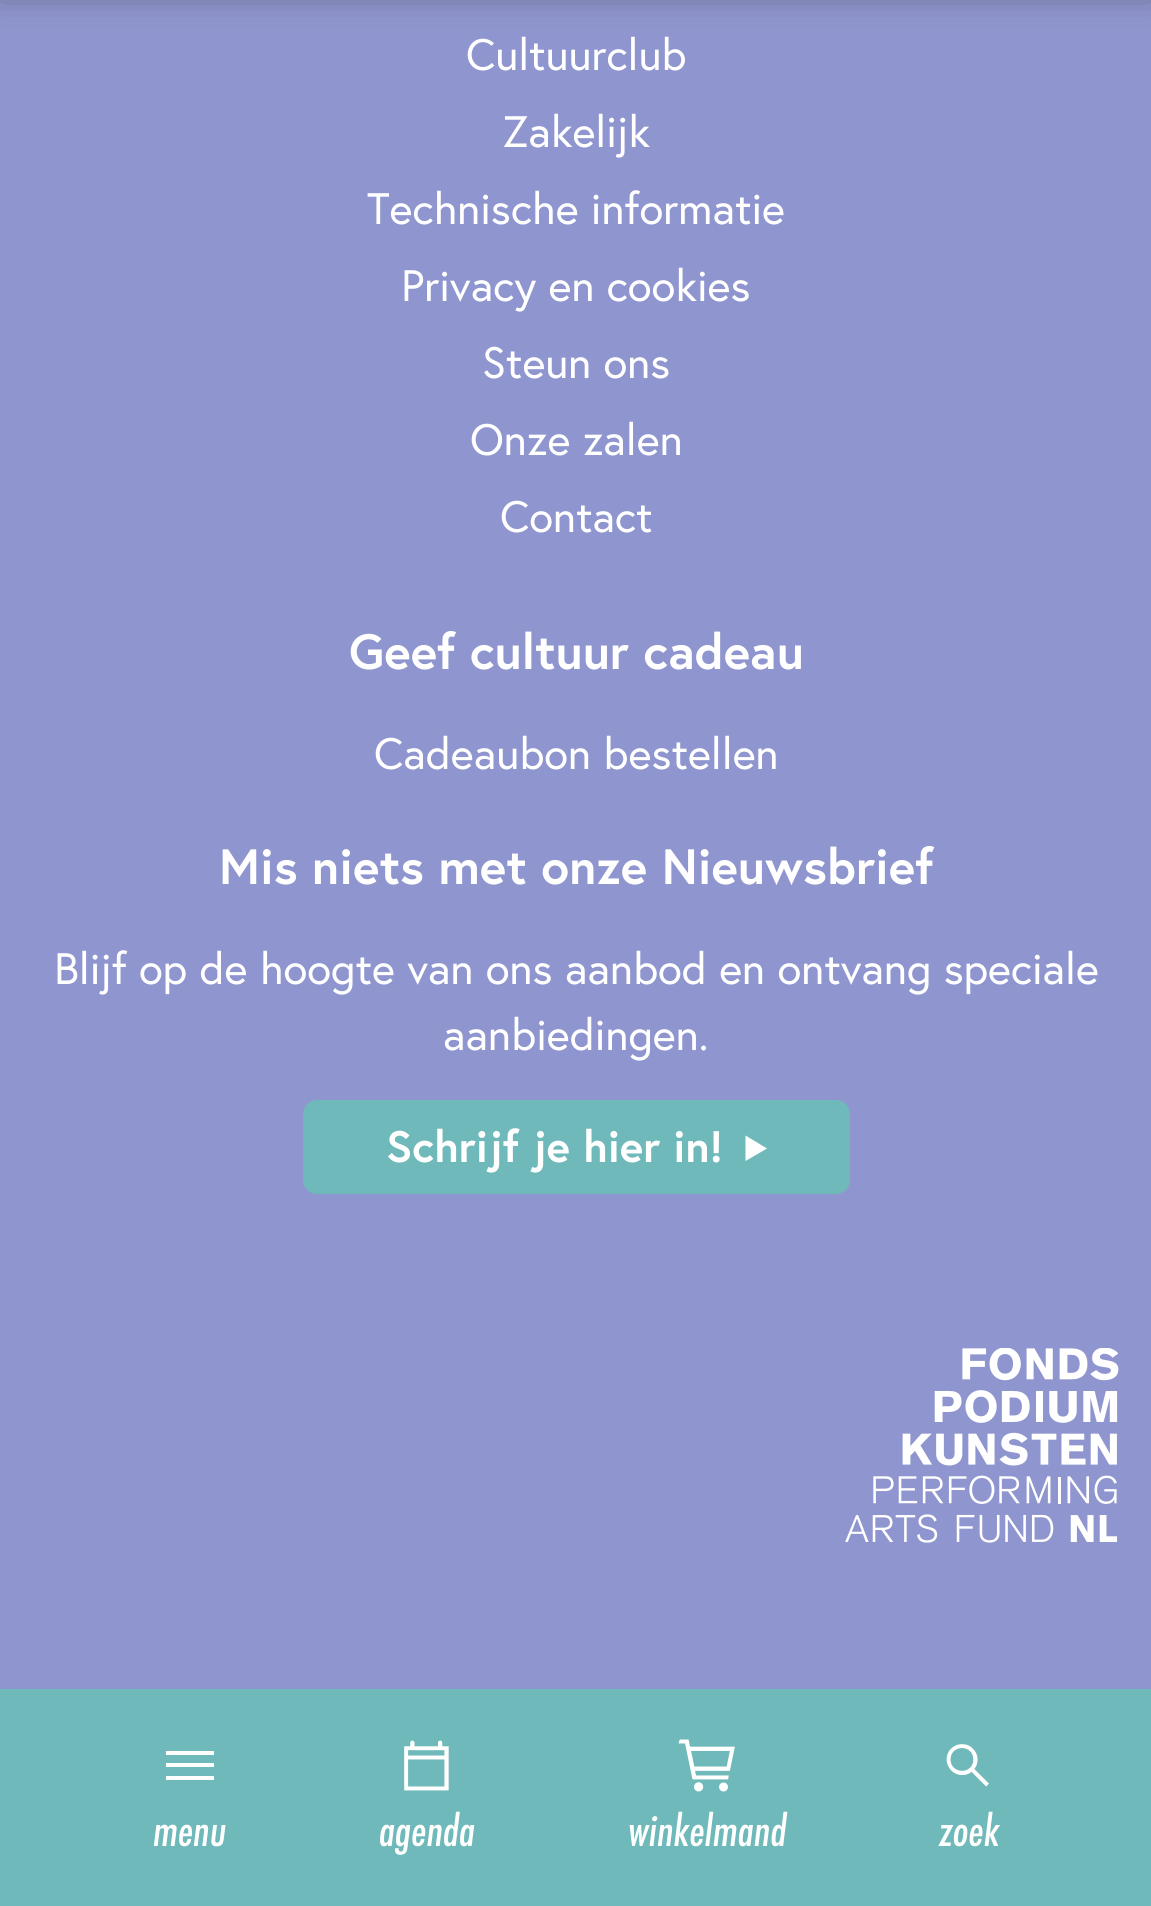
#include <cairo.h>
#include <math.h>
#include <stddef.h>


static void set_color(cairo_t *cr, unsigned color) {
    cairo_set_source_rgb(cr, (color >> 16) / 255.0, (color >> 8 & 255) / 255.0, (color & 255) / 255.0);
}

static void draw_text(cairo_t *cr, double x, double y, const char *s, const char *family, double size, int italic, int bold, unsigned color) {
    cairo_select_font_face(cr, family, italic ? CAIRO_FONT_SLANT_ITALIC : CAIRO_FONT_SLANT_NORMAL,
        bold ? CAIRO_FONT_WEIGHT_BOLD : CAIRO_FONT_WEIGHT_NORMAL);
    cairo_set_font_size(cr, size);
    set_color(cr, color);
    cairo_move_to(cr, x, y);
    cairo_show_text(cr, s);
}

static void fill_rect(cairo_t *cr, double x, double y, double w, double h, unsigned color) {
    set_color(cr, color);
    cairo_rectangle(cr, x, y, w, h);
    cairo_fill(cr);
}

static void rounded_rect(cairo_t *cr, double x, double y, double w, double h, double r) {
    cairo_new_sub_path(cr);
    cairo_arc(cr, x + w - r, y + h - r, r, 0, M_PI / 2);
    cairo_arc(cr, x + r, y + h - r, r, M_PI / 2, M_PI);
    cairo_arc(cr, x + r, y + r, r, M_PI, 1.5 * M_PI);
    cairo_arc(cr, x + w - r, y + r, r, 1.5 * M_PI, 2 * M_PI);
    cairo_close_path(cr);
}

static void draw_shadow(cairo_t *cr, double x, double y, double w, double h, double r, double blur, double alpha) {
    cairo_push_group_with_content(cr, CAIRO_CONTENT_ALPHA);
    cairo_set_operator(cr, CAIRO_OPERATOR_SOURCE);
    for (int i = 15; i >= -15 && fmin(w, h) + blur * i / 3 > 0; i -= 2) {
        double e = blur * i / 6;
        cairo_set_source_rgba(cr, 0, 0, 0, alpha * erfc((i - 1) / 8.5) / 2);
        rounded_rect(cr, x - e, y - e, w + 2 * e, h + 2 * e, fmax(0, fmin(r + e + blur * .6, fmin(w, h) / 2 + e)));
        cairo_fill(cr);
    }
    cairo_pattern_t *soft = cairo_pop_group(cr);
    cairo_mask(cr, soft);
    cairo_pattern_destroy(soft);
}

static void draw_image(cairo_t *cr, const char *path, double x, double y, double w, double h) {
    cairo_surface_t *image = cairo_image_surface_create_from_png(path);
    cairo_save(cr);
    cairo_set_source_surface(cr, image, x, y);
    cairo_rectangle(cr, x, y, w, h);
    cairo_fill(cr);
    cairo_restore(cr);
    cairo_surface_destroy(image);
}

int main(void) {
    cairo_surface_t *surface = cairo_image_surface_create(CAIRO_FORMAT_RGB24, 1151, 1906);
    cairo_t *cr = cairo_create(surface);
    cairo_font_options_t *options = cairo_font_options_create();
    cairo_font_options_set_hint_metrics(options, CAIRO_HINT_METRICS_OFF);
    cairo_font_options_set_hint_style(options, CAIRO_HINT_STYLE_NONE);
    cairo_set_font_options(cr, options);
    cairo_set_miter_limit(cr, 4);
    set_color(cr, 0x8F95CE);
    cairo_paint(cr);
    set_color(cr, 0x373737);
    draw_shadow(cr, 0, -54, 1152, 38, 0, 18, 1);
    draw_text(cr, 466, 70, "Cultuurclub", "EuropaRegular", 44, 0, 0, 0xFFFFFF);
    draw_text(cr, 503, 147, "Zakelijk", "EuropaRegular", 44, 0, 0, 0xFFFFFF);
    draw_text(cr, 367, 224, "Technische informatie", "EuropaRegular", 44, 0, 0, 0xFFFFFF);
    draw_text(cr, 401, 301, "Privacy en cookies", "EuropaRegular", 44, 0, 0, 0xFFFFFF);
    draw_text(cr, 482, 378, "Steun ons", "EuropaRegular", 44, 0, 0, 0xFFFFFF);
    draw_text(cr, 470, 455, "Onze zalen", "EuropaRegular", 44, 0, 0, 0xFFFFFF);
    draw_text(cr, 500, 532, "Contact", "EuropaRegular", 44, 0, 0, 0xFFFFFF);
    draw_text(cr, 349, 669, "Geef cultuur cadeau", "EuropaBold", 49.5, 0, 1, 0xFFFFFF);
    draw_text(cr, 374, 769, "Cadeaubon bestellen", "EuropaRegular", 44, 0, 0, 0xFFFFFF);
    draw_text(cr, 219, 884, "Mis niets met onze Nieuwsbrief", "EuropaBold", 49.5, 0, 1, 0xFFFFFF);
    draw_text(cr, 54, 984, "Blijf op de hoogte van ons aanbod en ontvang speciale", "EuropaRegular", 44, 0, 0, 0xFFFFFF);
    draw_text(cr, 443, 1050, "aanbiedingen.", "EuropaRegular", 44, 0, 0, 0xFFFFFF);
    set_color(cr, 0x6FB9BA);
    rounded_rect(cr, 303, 1100, 547, 94, 14);
    cairo_fill(cr);
    draw_text(cr, 386, 1162, "Schrijf je hier in!", "EuropaBold", 44, 0, 1, 0xFFFFFF);
    cairo_new_path(cr);
    cairo_move_to(cr, 767, 1148.5);
    cairo_line_to(cr, 745.5, 1161);
    cairo_line_to(cr, 745.5, 1135.5);
    cairo_close_path(cr);
    cairo_fill(cr);
    draw_image(cr, "assets/img1.png", 845, 1348, 274, 195);
    fill_rect(cr, 0, 1689, 1151, 217, 0x6FB9BA);
    fill_rect(cr, 166, 1751, 48, 4, 0xFFFFFF);
    fill_rect(cr, 166, 1763, 48, 4, 0xFFFFFF);
    fill_rect(cr, 166, 1776, 48, 4, 0xFFFFFF);
    draw_text(cr, 153, 1846, "menu", "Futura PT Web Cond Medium", 47, 1, 0, 0xFFFFFF);
    draw_image(cr, "assets/img2.png", 404, 1740, 45, 51);
    draw_text(cr, 379, 1846, "agenda", "Futura PT Web Cond Medium", 47, 1, 0, 0xFFFFFF);
    draw_image(cr, "assets/img3.png", 678, 1739, 57, 53);
    draw_text(cr, 628, 1846, "winkelmand", "Futura PT Web Cond Medium", 47, 1, 0, 0xFFFFFF);
    draw_image(cr, "assets/img4.png", 946, 1744, 43, 43);
    draw_text(cr, 939, 1846, "zoek", "Futura PT Web Cond Medium", 47, 1, 0, 0xFFFFFF);
    cairo_surface_write_to_png(surface, "output.png");
    cairo_font_options_destroy(options);
    cairo_destroy(cr);
    cairo_surface_destroy(surface);
    return 0;
}
